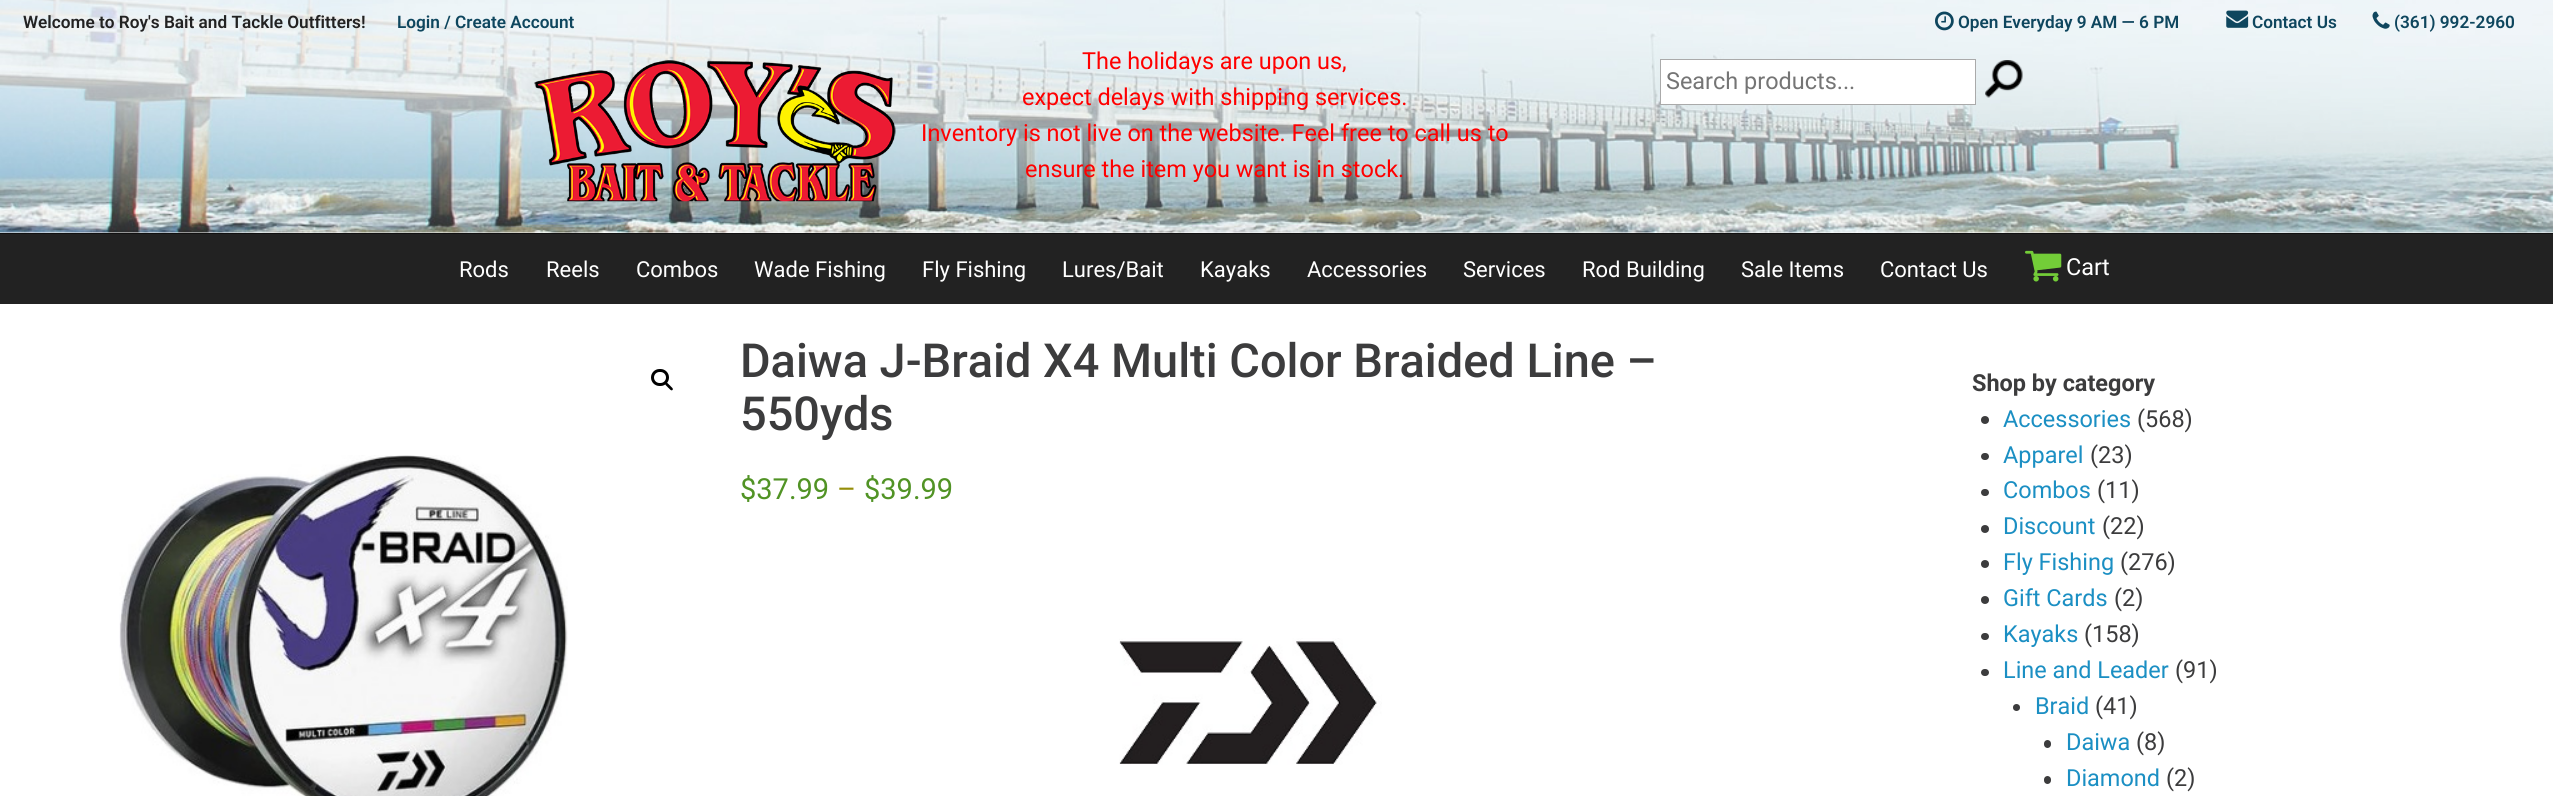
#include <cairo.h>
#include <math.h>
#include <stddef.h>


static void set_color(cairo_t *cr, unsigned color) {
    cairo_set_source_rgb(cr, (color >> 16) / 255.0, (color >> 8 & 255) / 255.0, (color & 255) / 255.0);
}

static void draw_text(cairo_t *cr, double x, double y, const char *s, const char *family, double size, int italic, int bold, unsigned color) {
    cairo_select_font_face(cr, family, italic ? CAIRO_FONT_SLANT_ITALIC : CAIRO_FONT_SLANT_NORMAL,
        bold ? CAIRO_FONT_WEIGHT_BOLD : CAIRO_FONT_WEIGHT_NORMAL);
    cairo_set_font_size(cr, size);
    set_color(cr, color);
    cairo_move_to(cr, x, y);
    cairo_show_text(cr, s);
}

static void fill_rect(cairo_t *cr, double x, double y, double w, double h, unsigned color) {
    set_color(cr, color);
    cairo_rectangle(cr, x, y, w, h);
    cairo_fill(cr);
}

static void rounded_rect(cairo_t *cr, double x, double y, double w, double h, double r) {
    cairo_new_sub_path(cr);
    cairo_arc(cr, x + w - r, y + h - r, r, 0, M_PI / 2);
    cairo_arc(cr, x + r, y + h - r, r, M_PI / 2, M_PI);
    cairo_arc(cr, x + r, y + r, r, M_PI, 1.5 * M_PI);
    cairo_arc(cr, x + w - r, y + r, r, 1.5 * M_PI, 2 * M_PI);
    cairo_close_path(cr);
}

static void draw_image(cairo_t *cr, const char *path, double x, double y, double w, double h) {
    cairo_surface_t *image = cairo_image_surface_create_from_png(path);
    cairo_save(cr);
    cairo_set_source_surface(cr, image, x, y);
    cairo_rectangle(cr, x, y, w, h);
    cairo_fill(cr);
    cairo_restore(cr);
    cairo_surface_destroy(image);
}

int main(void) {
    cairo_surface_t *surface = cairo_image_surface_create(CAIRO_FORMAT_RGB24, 2553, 796);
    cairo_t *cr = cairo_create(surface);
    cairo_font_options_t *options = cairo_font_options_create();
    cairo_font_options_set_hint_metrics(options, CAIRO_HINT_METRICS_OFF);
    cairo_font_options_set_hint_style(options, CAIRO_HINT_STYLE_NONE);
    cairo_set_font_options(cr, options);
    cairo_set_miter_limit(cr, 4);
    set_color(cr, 0xFFFFFF);
    cairo_paint(cr);
    draw_image(cr, "assets/img1.png", 0, 0, 2553, 233);
    draw_text(cr, 23, 28, "Welcome to Roy's Bait and Tackle Outfitters!", "Roboto SemiBold", 17.2, 0, 0, 0x222222);
    draw_text(cr, 397, 28, "Login / Create Account", "Roboto SemiBold", 17.2, 0, 0, 0x0E465E);
    draw_image(cr, "assets/img2.png", 1935, 11, 19, 20);
    draw_text(cr, 1958, 28, "Open Everyday 9 AM — 6 PM", "Roboto SemiBold", 17.2, 0, 0, 0x0E465E);
    draw_image(cr, "assets/img3.png", 2226, 10, 23, 18);
    draw_text(cr, 2252, 28, "Contact Us", "Roboto SemiBold", 17.2, 0, 0, 0x0E465E);
    draw_image(cr, "assets/img4.png", 2372, 11, 18, 18);
    draw_text(cr, 2394, 28, "(361) 992-2960", "Roboto SemiBold", 17.2, 0, 0, 0x0E465E);
    draw_image(cr, "assets/img5.png", 534, 60, 362, 142);
    draw_text(cr, 1082, 69, "The holidays are upon us,", "Roboto", 23.45, 0, 0, 0xFF0000);
    draw_text(cr, 1022, 105, "expect delays with shipping services.", "Roboto", 23.45, 0, 0, 0xFF0000);
    draw_text(cr, 921, 141, "Inventory is not live on the website. Feel free to call us to", "Roboto", 23.45, 0, 0, 0xFF0000);
    draw_text(cr, 1025, 177, "ensure the item you want is in stock.", "Roboto", 23.45, 0, 0, 0xFF0000);
    set_color(cr, 0xFFFFFF);
    cairo_rectangle(cr, 1660.5, 59.5, 315, 45);
    cairo_fill_preserve(cr);
    set_color(cr, 0xAAAAAA);
    cairo_set_line_width(cr, 1);
    cairo_stroke(cr);
    draw_text(cr, 1666, 89, "Search products...", "Roboto", 23.45, 0, 0, 0x757575);
    draw_image(cr, "assets/img6.png", 1985, 60, 38, 38);
    fill_rect(cr, 0, 234, 2553, 70, 0x222222);
    fill_rect(cr, 0, 233, 2553, 1, 0x111111);
    draw_text(cr, 459, 277, "Rods", "Roboto", 22, 0, 0, 0xFFFFFF);
    draw_text(cr, 546, 277, "Reels", "Roboto", 22, 0, 0, 0xFFFFFF);
    draw_text(cr, 636, 277, "Combos", "Roboto", 22, 0, 0, 0xFFFFFF);
    draw_text(cr, 754, 277, "Wade Fishing", "Roboto", 22, 0, 0, 0xFFFFFF);
    draw_text(cr, 922, 277, "Fly Fishing", "Roboto", 22, 0, 0, 0xFFFFFF);
    draw_text(cr, 1062, 277, "Lures/Bait", "Roboto", 22, 0, 0, 0xFFFFFF);
    draw_text(cr, 1200, 277, "Kayaks", "Roboto", 22, 0, 0, 0xFFFFFF);
    draw_text(cr, 1307, 277, "Accessories", "Roboto", 22, 0, 0, 0xFFFFFF);
    draw_text(cr, 1463, 277, "Services", "Roboto", 22, 0, 0, 0xFFFFFF);
    draw_text(cr, 1582, 277, "Rod Building", "Roboto", 22, 0, 0, 0xFFFFFF);
    draw_text(cr, 1741, 277, "Sale Items", "Roboto", 22, 0, 0, 0xFFFFFF);
    draw_text(cr, 1880, 277, "Contact Us", "Roboto", 22, 0, 0, 0xFFFFFF);
    draw_image(cr, "assets/img7.png", 2025, 250, 37, 32);
    draw_text(cr, 2066, 275, "Cart", "Roboto", 23.45, 0, 0, 0xFFFFFF);
    rounded_rect(cr, 652.5, 370.5, 15, 14, 7);
    set_color(cr, 0x000000);
    cairo_set_line_width(cr, 3);
    cairo_stroke(cr);
    cairo_new_path(cr);
    cairo_move_to(cr, 665.5, 383);
    cairo_curve_to(cr, 667, 381.5, 669, 385, 670, 385.5);
    cairo_curve_to(cr, 670.5, 386.5, 674, 388.5, 672.5, 390);
    cairo_curve_to(cr, 671, 391.5, 669, 388, 668, 387.5);
    cairo_curve_to(cr, 667.5, 386.5, 664, 384.5, 665.5, 383);
    cairo_close_path(cr);
    cairo_fill(cr);
    draw_image(cr, "assets/img8.png", 119, 455, 449, 341);
    draw_text(cr, 740, 377, "Daiwa J-Braid X4 Multi Color Braided Line –", "Roboto Medium", 46.9, 0, 0, 0x3C3C3D);
    draw_text(cr, 740, 430, "550yds", "Roboto Medium", 46.9, 0, 0, 0x3C3C3D);
    draw_text(cr, 740, 499, "$37.99", "Roboto", 29, 0, 0, 0x519325);
    draw_text(cr, 837, 499, "–", "Roboto", 29, 0, 0, 0x958E09);
    draw_text(cr, 864, 499, "$39.99", "Roboto", 29, 0, 0, 0x519325);
    draw_image(cr, "assets/img9.png", 1119, 638, 263, 127);
    draw_text(cr, 1972, 391, "Shop by category", "Roboto", 23.45, 0, 1, 0x3C3C3D);
    cairo_new_path(cr);
    cairo_arc(cr, 1985, 420, 4, 0, 2 * M_PI);
    cairo_fill(cr);
    draw_text(cr, 2003, 427, "Accessories", "Roboto", 23.45, 0, 0, 0x1B8FC3);
    draw_text(cr, 2137, 427, "(568)", "Roboto", 23.45, 0, 0, 0x3C3C3D);
    rounded_rect(cr, 1981, 453, 8, 7, 3.5);
    cairo_fill(cr);
    draw_text(cr, 2003, 463, "Apparel", "Roboto", 23.45, 0, 0, 0x1B8FC3);
    draw_text(cr, 2090, 463, "(23)", "Roboto", 23.45, 0, 0, 0x3C3C3D);
    rounded_rect(cr, 1981, 489, 8, 7, 3.5);
    cairo_fill(cr);
    draw_text(cr, 2003, 498, "Combos", "Roboto", 23.45, 0, 0, 0x1B8FC3);
    draw_text(cr, 2097, 498, "(11)", "Roboto", 23.45, 0, 0, 0x3C3C3D);
    cairo_new_path(cr);
    cairo_arc(cr, 1985, 529, 4, 0, 2 * M_PI);
    cairo_fill(cr);
    draw_text(cr, 2003, 534, "Discount", "Roboto", 23.45, 0, 0, 0x1B8FC3);
    draw_text(cr, 2102, 534, "(22)", "Roboto", 23.45, 0, 0, 0x3C3C3D);
    cairo_new_path(cr);
    cairo_arc(cr, 1985, 564, 4, 0, 2 * M_PI);
    cairo_fill(cr);
    draw_text(cr, 2003, 570, "Fly Fishing", "Roboto", 23.45, 0, 0, 0x1B8FC3);
    draw_text(cr, 2120, 570, "(276)", "Roboto", 23.45, 0, 0, 0x3C3C3D);
    cairo_new_path(cr);
    cairo_arc(cr, 1985, 600, 4, 0, 2 * M_PI);
    cairo_fill(cr);
    draw_text(cr, 2003, 606, "Gift Cards", "Roboto", 23.45, 0, 0, 0x1B8FC3);
    draw_text(cr, 2114, 606, "(2)", "Roboto", 23.45, 0, 0, 0x3C3C3D);
    rounded_rect(cr, 1981, 633, 8, 7, 3.5);
    cairo_fill(cr);
    draw_text(cr, 2003, 642, "Kayaks", "Roboto", 23.45, 0, 0, 0x1B8FC3);
    draw_text(cr, 2084, 642, "(158)", "Roboto", 23.45, 0, 0, 0x3C3C3D);
    rounded_rect(cr, 1981, 669, 8, 7, 3.5);
    cairo_fill(cr);
    draw_text(cr, 2003, 678, "Line and Leader", "Roboto", 23.45, 0, 0, 0x1B8FC3);
    draw_text(cr, 2175, 678, "(91)", "Roboto", 23.45, 0, 0, 0x3C3C3D);
    cairo_new_path(cr);
    cairo_arc(cr, 2016.5, 707.5, 3.5, 0, 2 * M_PI);
    cairo_fill(cr);
    draw_text(cr, 2035, 714, "Braid", "Roboto", 23.45, 0, 0, 0x1B8FC3);
    draw_text(cr, 2095, 714, "(41)", "Roboto", 23.45, 0, 0, 0x3C3C3D);
    rounded_rect(cr, 2044, 740, 7, 8, 3.5);
    cairo_fill(cr);
    draw_text(cr, 2066, 750, "Daiwa", "Roboto", 23.45, 0, 0, 0x1B8FC3);
    draw_text(cr, 2136, 750, "(8)", "Roboto", 23.45, 0, 0, 0x3C3C3D);
    rounded_rect(cr, 2044, 776, 7, 8, 3.5);
    cairo_fill(cr);
    draw_text(cr, 2066, 786, "Diamond", "Roboto", 23.45, 0, 0, 0x1B8FC3);
    draw_text(cr, 2166, 786, "(2)", "Roboto", 23.45, 0, 0, 0x3C3C3D);
    cairo_surface_write_to_png(surface, "output.png");
    cairo_font_options_destroy(options);
    cairo_destroy(cr);
    cairo_surface_destroy(surface);
    return 0;
}
